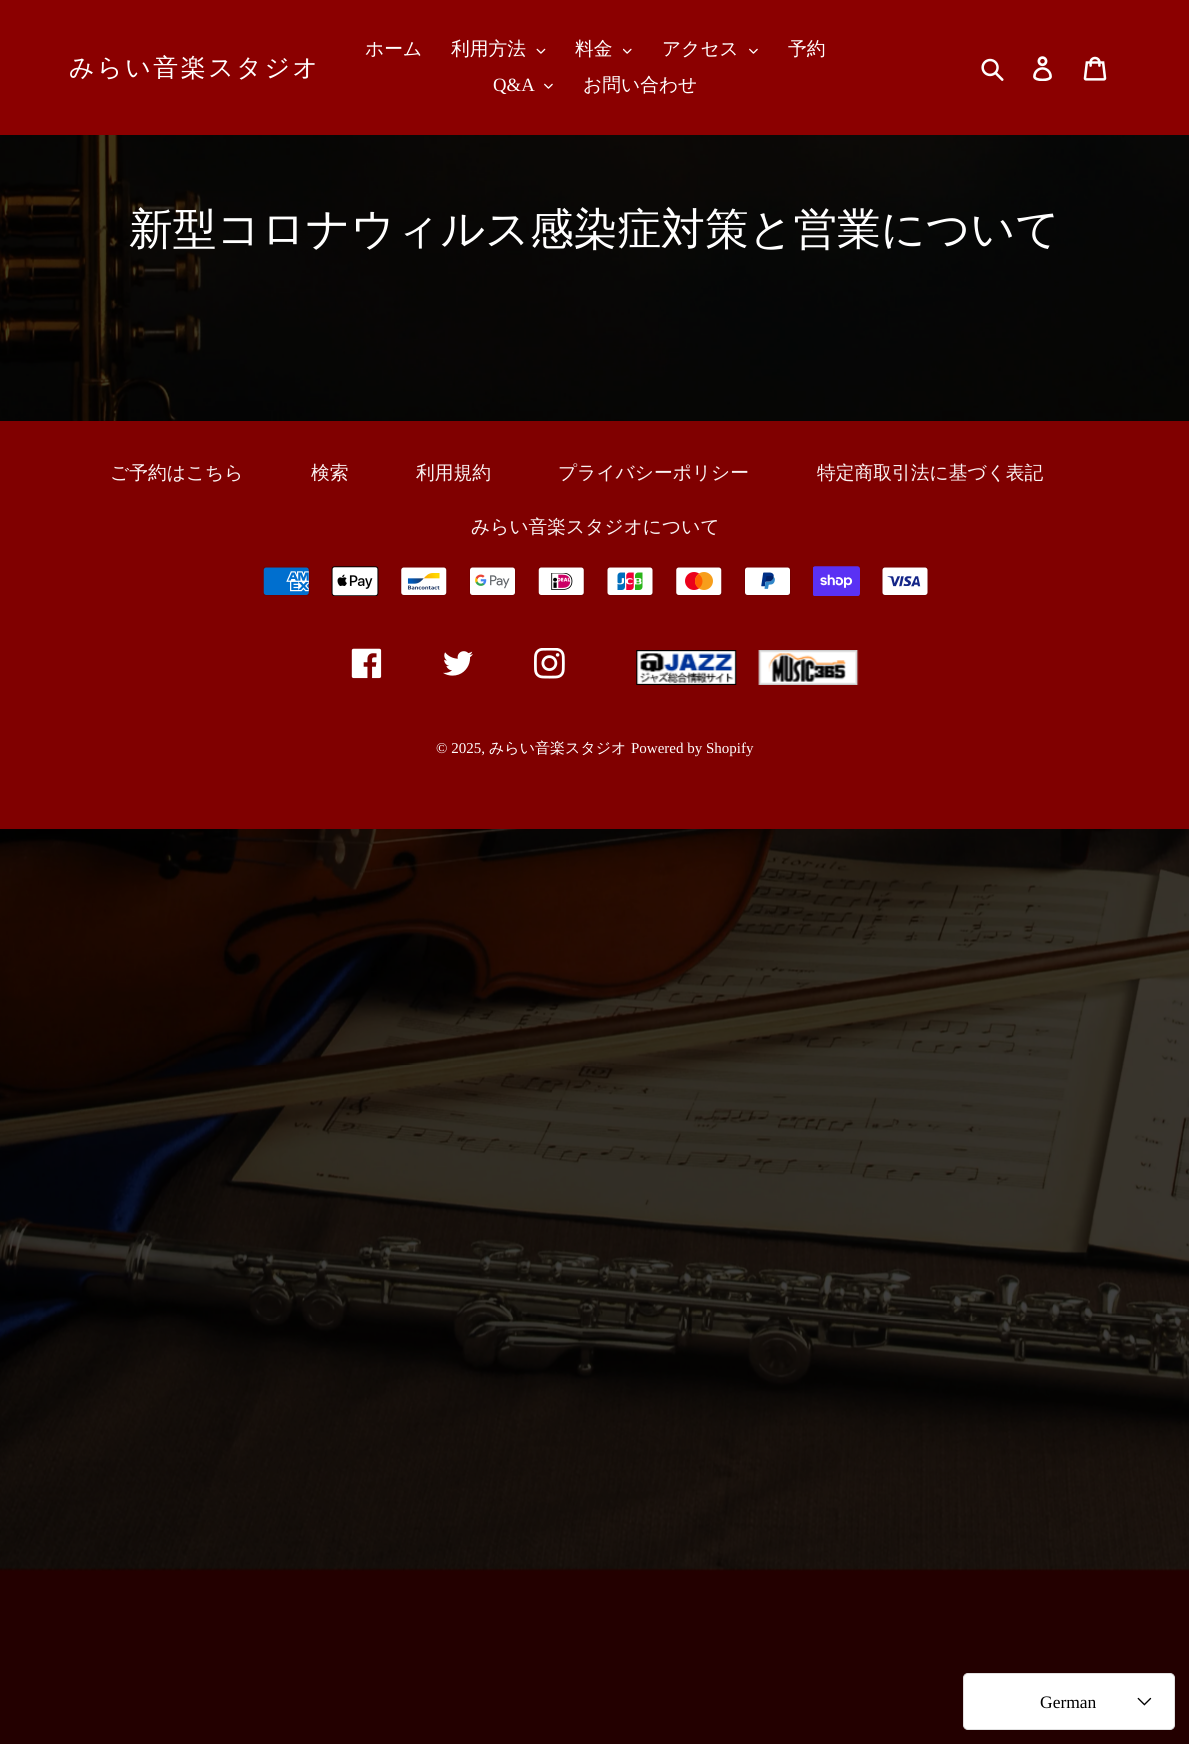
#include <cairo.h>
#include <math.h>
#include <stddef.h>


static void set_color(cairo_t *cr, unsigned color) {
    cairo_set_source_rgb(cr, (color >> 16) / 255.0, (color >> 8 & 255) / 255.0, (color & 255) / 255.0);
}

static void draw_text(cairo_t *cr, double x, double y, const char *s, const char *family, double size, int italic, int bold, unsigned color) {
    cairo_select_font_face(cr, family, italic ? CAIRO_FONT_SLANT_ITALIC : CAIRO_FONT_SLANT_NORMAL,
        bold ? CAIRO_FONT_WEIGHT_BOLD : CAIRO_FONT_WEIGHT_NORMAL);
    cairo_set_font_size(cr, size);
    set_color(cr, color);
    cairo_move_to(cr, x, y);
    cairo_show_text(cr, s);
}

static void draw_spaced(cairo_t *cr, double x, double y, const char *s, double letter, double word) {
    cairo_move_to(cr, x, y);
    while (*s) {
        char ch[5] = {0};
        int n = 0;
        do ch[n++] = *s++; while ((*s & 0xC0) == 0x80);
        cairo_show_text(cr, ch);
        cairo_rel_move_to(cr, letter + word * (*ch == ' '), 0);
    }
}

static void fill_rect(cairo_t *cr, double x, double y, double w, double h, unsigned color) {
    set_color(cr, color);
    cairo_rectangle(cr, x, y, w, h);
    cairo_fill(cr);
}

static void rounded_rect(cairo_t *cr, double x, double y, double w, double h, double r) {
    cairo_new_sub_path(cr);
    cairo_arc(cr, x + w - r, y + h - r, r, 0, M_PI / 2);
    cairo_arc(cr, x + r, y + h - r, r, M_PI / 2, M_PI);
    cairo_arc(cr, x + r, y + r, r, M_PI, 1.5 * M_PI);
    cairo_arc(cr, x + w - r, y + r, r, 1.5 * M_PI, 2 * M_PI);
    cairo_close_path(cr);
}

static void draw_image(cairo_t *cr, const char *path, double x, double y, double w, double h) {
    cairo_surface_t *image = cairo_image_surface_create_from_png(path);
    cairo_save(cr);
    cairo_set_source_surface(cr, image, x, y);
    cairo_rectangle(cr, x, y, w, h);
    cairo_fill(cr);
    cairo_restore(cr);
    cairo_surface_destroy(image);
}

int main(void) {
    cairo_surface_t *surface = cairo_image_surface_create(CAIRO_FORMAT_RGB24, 1189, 1744);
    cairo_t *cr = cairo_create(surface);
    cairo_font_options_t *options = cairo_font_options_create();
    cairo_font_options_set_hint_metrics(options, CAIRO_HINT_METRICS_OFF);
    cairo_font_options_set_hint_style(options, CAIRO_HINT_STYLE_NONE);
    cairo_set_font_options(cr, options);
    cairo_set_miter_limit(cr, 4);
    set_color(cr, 0x230000);
    cairo_paint(cr);
    fill_rect(cr, 0, 0, 1189, 135, 0x8B0000);
    cairo_select_font_face(cr, "WenQuanYi Zen Hei Medium", CAIRO_FONT_SLANT_NORMAL, CAIRO_FONT_WEIGHT_NORMAL);
    cairo_set_font_size(cr, 25);
    set_color(cr, 0xFFFFFF);
    draw_spaced(cr, 69, 76, "みらい音楽スタジオ", 2.5, 0);
    draw_text(cr, 365, 55, "ホーム", "WenQuanYi Zen Hei Medium", 18.75, 0, 0, 0xFFFFFF);
    draw_text(cr, 451, 55, "利用方法", "WenQuanYi Zen Hei Medium", 18.75, 0, 0, 0xFFFFFF);
    draw_image(cr, "assets/img1.png", 536, 48, 10, 6);
    draw_text(cr, 575, 55, "料金", "WenQuanYi Zen Hei Medium", 18.75, 0, 0, 0xFFFFFF);
    draw_image(cr, "assets/img2.png", 623, 48, 9, 6);
    draw_text(cr, 662, 55, "アクセス", "WenQuanYi Zen Hei Medium", 18.75, 0, 0, 0xFFFFFF);
    draw_image(cr, "assets/img3.png", 749, 48, 9, 6);
    draw_text(cr, 788, 55, "予約", "WenQuanYi Zen Hei Medium", 18.75, 0, 0, 0xFFFFFF);
    draw_text(cr, 493, 91, "Q&A", "Liberation Serif", 18.75, 0, 0, 0xFFFFFF);
    draw_image(cr, "assets/img3.png", 544, 83, 9, 6);
    draw_text(cr, 583, 91, "お問い合わせ", "WenQuanYi Zen Hei Medium", 18.75, 0, 0, 0xFFFFFF);
    draw_image(cr, "assets/img4.png", 981, 58, 23, 23);
    draw_image(cr, "assets/img5.png", 1033, 56, 19, 25);
    draw_image(cr, "assets/img6.png", 1083, 56, 24, 25);
    draw_image(cr, "assets/img7.png", 0, 135, 1189, 1436);
    draw_text(cr, 129, 244, "新型コロナウィルス感染症対策と営業について", "WenQuanYi Zen Hei Medium", 43.75, 0, 0, 0xFFFFFF);
    fill_rect(cr, 0, 421, 1189, 408, 0x800000);
    draw_text(cr, 110, 479, "ご予約はこちら", "WenQuanYi Zen Hei Medium", 18.75, 0, 0, 0xF9F2F2);
    draw_text(cr, 311, 479, "検索", "WenQuanYi Zen Hei Medium", 18.75, 0, 0, 0xF9F2F2);
    draw_text(cr, 416, 479, "利用規約", "WenQuanYi Zen Hei Medium", 18.75, 0, 0, 0xF9F2F2);
    draw_text(cr, 558, 479, "プライバシーポリシー", "WenQuanYi Zen Hei Medium", 18.75, 0, 0, 0xF9F2F2);
    draw_text(cr, 817, 479, "特定商取引法に基づく表記", "WenQuanYi Zen Hei Medium", 18.75, 0, 0, 0xF9F2F2);
    draw_text(cr, 471, 533, "みらい音楽スタジオについて", "WenQuanYi Zen Hei Medium", 18.75, 0, 0, 0xF9F2F2);
    draw_image(cr, "assets/img8.png", 263, 566, 47, 30);
    draw_image(cr, "assets/img9.png", 331, 566, 48, 30);
    draw_image(cr, "assets/img10.png", 400, 566, 48, 30);
    draw_image(cr, "assets/img11.png", 469, 566, 47, 30);
    draw_image(cr, "assets/img12.png", 538, 566, 47, 30);
    draw_image(cr, "assets/img13.png", 606, 566, 48, 30);
    draw_image(cr, "assets/img14.png", 675, 566, 48, 30);
    draw_image(cr, "assets/img15.png", 744, 566, 47, 30);
    draw_image(cr, "assets/img16.png", 813, 566, 47, 30);
    draw_image(cr, "assets/img17.png", 881, 566, 48, 30);
    draw_image(cr, "assets/img18.png", 351, 648, 31, 31);
    draw_image(cr, "assets/img19.png", 443, 651, 30, 25);
    draw_image(cr, "assets/img20.png", 534, 648, 31, 31);
    draw_image(cr, "assets/img21.png", 636, 650, 101, 35);
    draw_image(cr, "assets/img22.png", 758, 650, 101, 35);
    draw_text(cr, 436, 753, "© 2025,", "Liberation Serif", 15, 0, 0, 0xFFFFFF);
    draw_text(cr, 489, 753, "みらい音楽スタジオ", "WenQuanYi Zen Hei Medium", 15, 0, 0, 0xFFFFFF);
    draw_text(cr, 631, 753, "Powered by Shopify", "Liberation Serif", 15, 0, 0, 0xFFFFFF);
    rounded_rect(cr, 963.5, 1673.5, 211, 56, 4.5);
    cairo_fill_preserve(cr);
    set_color(cr, 0xE0E0E0);
    cairo_set_line_width(cr, 1);
    cairo_stroke(cr);
    draw_text(cr, 1040, 1708, "German", "Liberation Serif", 17.5, 0, 0, 0x000000);
    draw_image(cr, "assets/img23.png", 1137, 1697, 15, 9);
    cairo_surface_write_to_png(surface, "output.png");
    cairo_font_options_destroy(options);
    cairo_destroy(cr);
    cairo_surface_destroy(surface);
    return 0;
}
